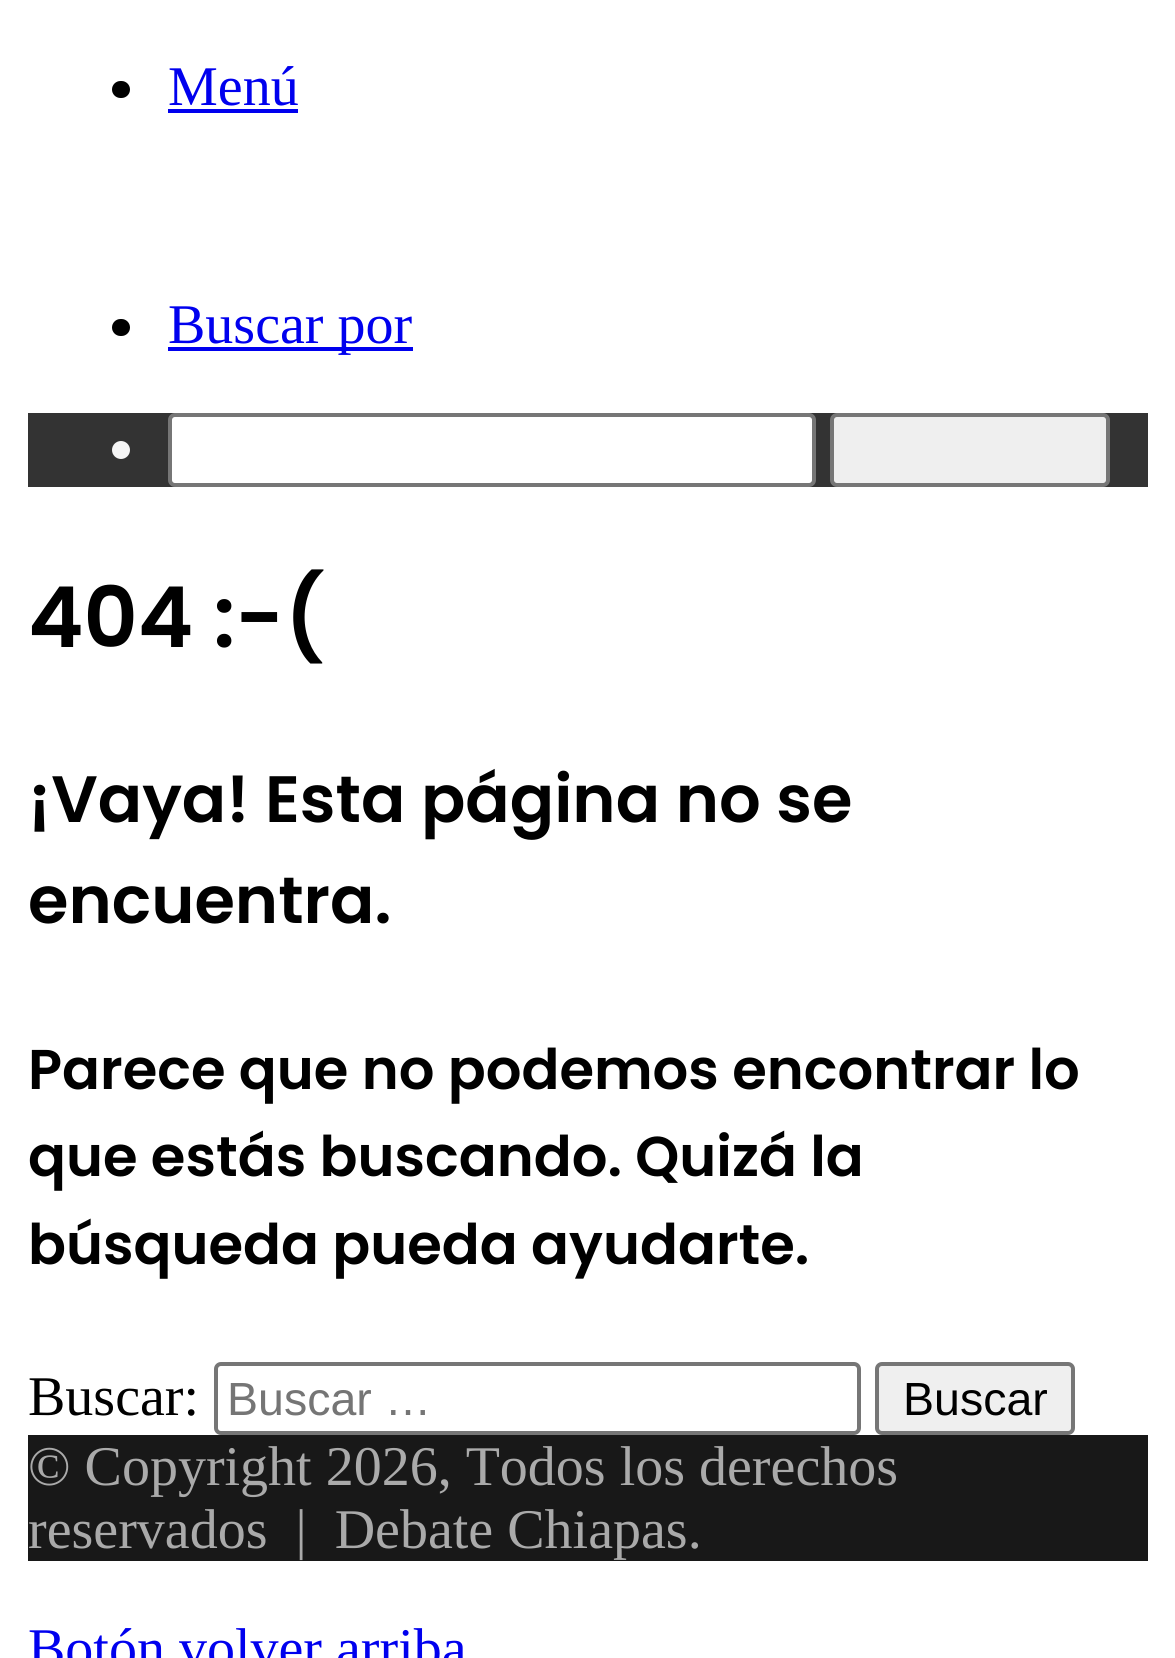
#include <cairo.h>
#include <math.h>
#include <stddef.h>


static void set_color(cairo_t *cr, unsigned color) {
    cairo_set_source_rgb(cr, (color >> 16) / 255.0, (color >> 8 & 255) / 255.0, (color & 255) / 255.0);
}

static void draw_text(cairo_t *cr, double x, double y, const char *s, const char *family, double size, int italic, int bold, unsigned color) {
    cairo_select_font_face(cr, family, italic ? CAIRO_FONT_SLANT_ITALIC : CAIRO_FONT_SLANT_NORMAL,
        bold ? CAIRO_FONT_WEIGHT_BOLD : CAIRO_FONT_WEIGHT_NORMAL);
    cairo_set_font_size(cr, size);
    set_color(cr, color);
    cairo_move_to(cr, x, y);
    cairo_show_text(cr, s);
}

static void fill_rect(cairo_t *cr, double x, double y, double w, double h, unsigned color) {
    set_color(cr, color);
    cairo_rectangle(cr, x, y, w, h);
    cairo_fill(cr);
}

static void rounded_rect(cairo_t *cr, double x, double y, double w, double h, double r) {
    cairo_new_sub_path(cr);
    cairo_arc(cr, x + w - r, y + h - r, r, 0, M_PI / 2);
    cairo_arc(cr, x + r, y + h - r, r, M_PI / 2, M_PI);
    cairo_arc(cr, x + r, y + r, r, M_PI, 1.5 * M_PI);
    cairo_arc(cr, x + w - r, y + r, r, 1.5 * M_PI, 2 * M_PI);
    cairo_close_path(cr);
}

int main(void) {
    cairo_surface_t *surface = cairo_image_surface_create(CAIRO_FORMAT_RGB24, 1175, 1658);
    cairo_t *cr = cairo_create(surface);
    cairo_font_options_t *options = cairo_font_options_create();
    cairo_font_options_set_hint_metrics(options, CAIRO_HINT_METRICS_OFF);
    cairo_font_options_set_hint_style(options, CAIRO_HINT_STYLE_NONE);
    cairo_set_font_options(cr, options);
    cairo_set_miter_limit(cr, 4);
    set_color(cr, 0xFFFFFF);
    cairo_paint(cr);
    set_color(cr, 0x000000);
    rounded_rect(cr, 112, 81, 18, 17, 8.5);
    cairo_fill(cr);
    draw_text(cr, 168, 105, "Menú", "Liberation Serif", 56, 0, 0, 0x0000EE);
    fill_rect(cr, 168, 109, 130, 4, 0x0000EE);
    set_color(cr, 0x000000);
    rounded_rect(cr, 112, 319, 18, 17, 8.5);
    cairo_fill(cr);
    fill_rect(cr, 168, 347, 245, 4, 0x0000EE);
    draw_text(cr, 168, 343, "Buscar por", "Liberation Serif", 56, 0, 0, 0x0000EE);
    fill_rect(cr, 28, 413, 1120, 74, 0x333333);
    set_color(cr, 0xF6F6F6);
    cairo_new_path(cr);
    cairo_arc(cr, 121, 450, 9, 0, 2 * M_PI);
    cairo_fill(cr);
    set_color(cr, 0xFFFFFF);
    rounded_rect(cr, 170, 415, 644, 70, 5);
    cairo_fill_preserve(cr);
    set_color(cr, 0x767676);
    cairo_set_line_width(cr, 4);
    cairo_stroke(cr);
    set_color(cr, 0xEFEFEF);
    rounded_rect(cr, 832, 415, 276, 70, 5);
    cairo_fill_preserve(cr);
    set_color(cr, 0x767676);
    cairo_stroke(cr);
    draw_text(cr, 28, 647, "404 :-(", "Poppins SemiBold", 84, 0, 0, 0x000000);
    draw_text(cr, 28, 822, "¡Vaya! Esta página no se", "Poppins SemiBold", 65.5, 0, 0, 0x000000);
    draw_text(cr, 28, 923, "encuentra.", "Poppins SemiBold", 65.5, 0, 0, 0x000000);
    draw_text(cr, 28, 1089, "Parece que no podemos encontrar lo", "Poppins SemiBold", 56, 0, 0, 0x000000);
    draw_text(cr, 28, 1176, "que estás buscando. Quizá la", "Poppins SemiBold", 56, 0, 0, 0x000000);
    draw_text(cr, 28, 1264, "búsqueda pueda ayudarte.", "Poppins SemiBold", 56, 0, 0, 0x000000);
    draw_text(cr, 28, 1415, "Buscar:", "Liberation Serif", 56, 0, 0, 0x000000);
    rounded_rect(cr, 216, 1364, 643, 69, 5);
    set_color(cr, 0x767676);
    cairo_stroke(cr);
    draw_text(cr, 227, 1415, "Buscar …", "Liberation Sans", 46.5, 0, 0, 0x757575);
    set_color(cr, 0xEFEFEF);
    rounded_rect(cr, 877, 1364, 196, 69, 5);
    cairo_fill_preserve(cr);
    set_color(cr, 0x767676);
    cairo_stroke(cr);
    draw_text(cr, 903, 1415, "Buscar", "Liberation Sans", 46.5, 0, 0, 0x000000);
    fill_rect(cr, 28, 1435, 1120, 126, 0x181818);
    draw_text(cr, 28, 1485, "© Copyright 2026, Todos los derechos", "Liberation Serif", 56, 0, 0, 0xAAAAAA);
    draw_text(cr, 28, 1548, "reservados  |  Debate Chiapas.", "Liberation Serif", 56, 0, 0, 0xAAAAAA);
    draw_text(cr, 28, 1667, "Botón volver arriba", "Liberation Serif", 56, 0, 0, 0x0000EE);
    cairo_surface_write_to_png(surface, "output.png");
    cairo_font_options_destroy(options);
    cairo_destroy(cr);
    cairo_surface_destroy(surface);
    return 0;
}
